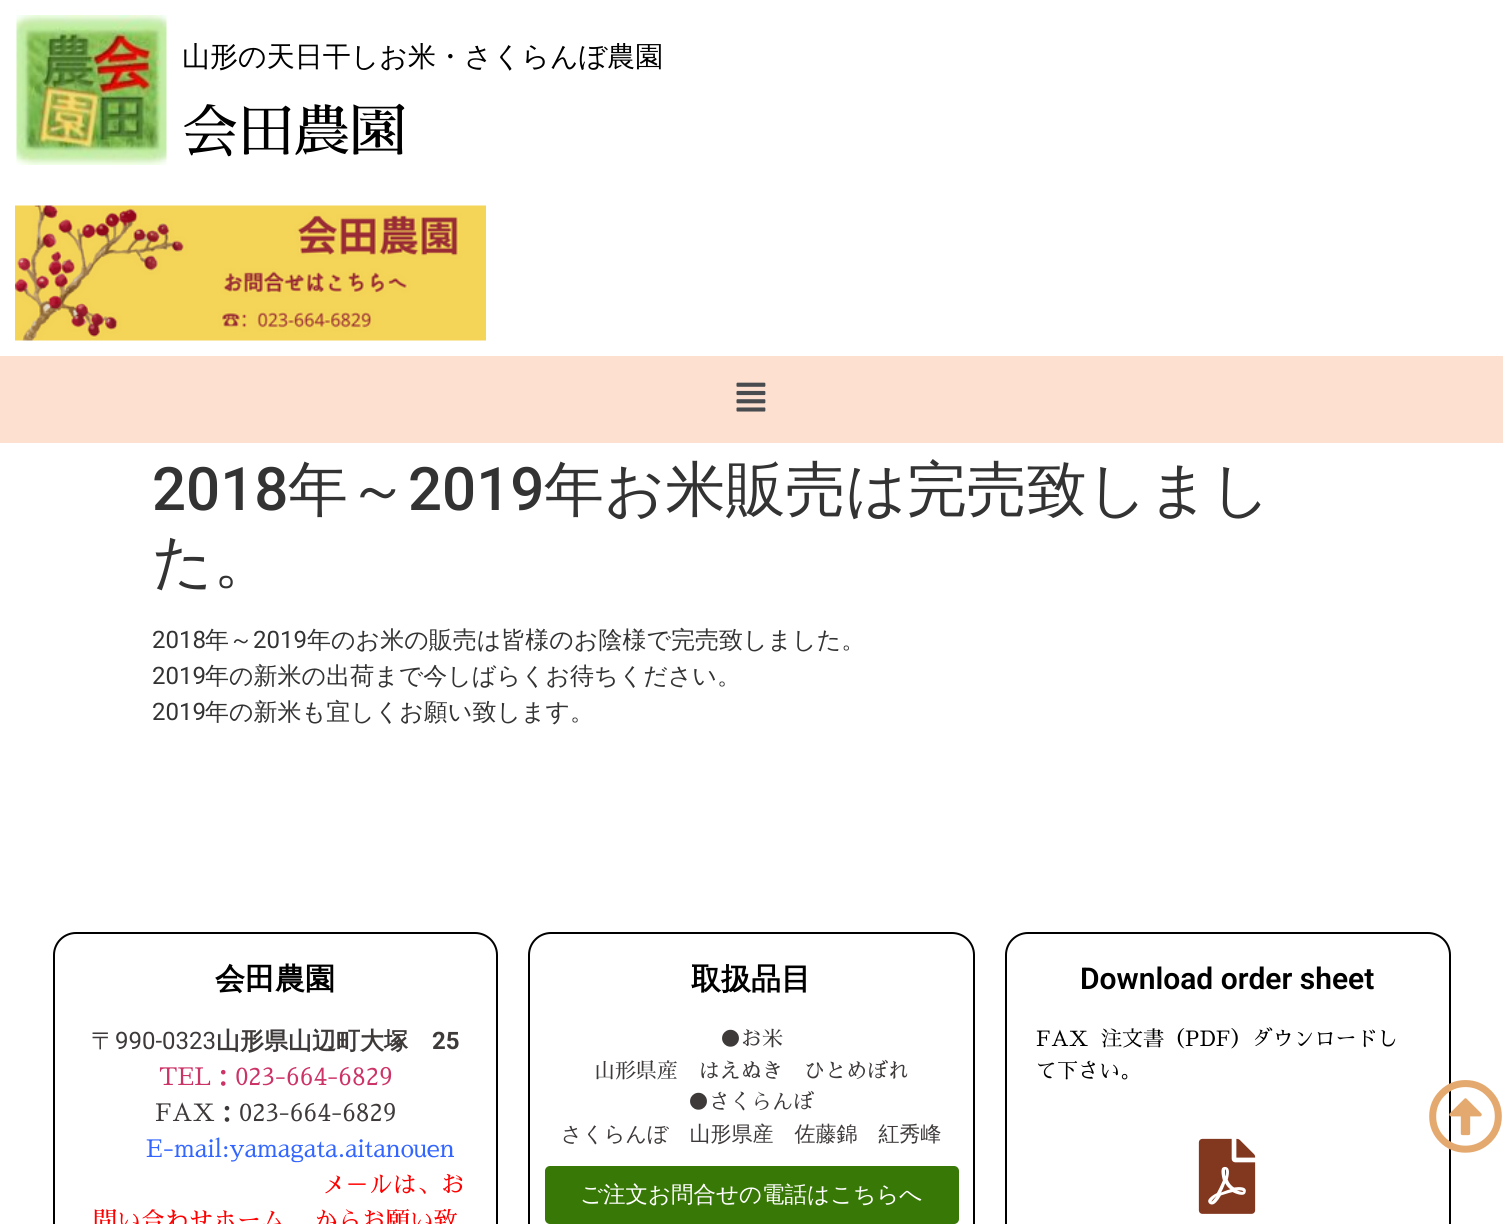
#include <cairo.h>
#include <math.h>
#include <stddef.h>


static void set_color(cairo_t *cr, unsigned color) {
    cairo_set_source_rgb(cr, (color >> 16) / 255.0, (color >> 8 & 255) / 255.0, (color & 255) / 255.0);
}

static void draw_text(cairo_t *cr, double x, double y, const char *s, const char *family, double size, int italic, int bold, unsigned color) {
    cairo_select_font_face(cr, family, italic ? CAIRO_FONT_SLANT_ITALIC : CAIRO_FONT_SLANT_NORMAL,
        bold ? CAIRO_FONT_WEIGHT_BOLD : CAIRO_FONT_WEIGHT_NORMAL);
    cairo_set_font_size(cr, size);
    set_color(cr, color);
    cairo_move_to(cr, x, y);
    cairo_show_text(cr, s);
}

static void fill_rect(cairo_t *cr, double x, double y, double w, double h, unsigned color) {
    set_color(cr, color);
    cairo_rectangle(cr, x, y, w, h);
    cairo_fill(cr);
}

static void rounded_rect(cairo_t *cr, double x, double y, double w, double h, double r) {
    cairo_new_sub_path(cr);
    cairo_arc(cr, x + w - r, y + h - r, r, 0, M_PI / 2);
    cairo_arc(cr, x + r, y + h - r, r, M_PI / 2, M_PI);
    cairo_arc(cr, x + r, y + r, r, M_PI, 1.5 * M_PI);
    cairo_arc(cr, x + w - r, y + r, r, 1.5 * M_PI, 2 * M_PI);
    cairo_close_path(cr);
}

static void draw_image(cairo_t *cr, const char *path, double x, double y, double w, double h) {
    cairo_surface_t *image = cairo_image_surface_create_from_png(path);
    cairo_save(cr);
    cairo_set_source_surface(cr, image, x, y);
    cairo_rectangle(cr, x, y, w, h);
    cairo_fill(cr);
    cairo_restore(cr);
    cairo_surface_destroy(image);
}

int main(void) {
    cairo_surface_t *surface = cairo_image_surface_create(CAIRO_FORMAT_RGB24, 1503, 1224);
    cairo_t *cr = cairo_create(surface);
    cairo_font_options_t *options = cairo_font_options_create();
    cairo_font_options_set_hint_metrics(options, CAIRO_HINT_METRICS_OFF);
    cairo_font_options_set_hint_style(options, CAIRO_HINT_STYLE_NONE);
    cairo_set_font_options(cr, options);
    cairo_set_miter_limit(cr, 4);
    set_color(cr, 0xFFFFFF);
    cairo_paint(cr);
    draw_image(cr, "assets/img1.png", 16, 15, 151, 150);
    draw_text(cr, 182, 66, "山形の天日干しお米・さくらんぼ農園", "WenQuanYi Zen Hei Medium", 28, 0, 0, 0x000000);
    draw_text(cr, 182, 151, "会田農園", "Sawarabi Mincho", 56, 0, 0, 0x000000);
    draw_image(cr, "assets/img2.png", 15, 205, 471, 136);
    fill_rect(cr, 0, 356, 1503, 87, 0xFDE0D0);
    draw_image(cr, "assets/img3.png", 736, 382, 30, 30);
    draw_text(cr, 152, 510, "2018", "Roboto Medium", 60, 0, 0, 0x333333);
    draw_text(cr, 288, 510, "年～", "WenQuanYi Zen Hei Medium", 60, 0, 0, 0x333333);
    draw_text(cr, 408, 510, "2019", "Roboto Medium", 60, 0, 0, 0x333333);
    draw_text(cr, 544, 510, "年お米販売は完売致しまし", "WenQuanYi Zen Hei Medium", 60, 0, 0, 0x333333);
    draw_text(cr, 152, 582, "た。", "WenQuanYi Zen Hei Medium", 60, 0, 0, 0x333333);
    draw_text(cr, 152, 648, "2018", "Roboto", 24, 0, 0, 0x333333);
    draw_text(cr, 205, 648, "年～", "WenQuanYi Zen Hei Medium", 24, 0, 0, 0x333333);
    draw_text(cr, 253, 648, "2019", "Roboto", 24, 0, 0, 0x333333);
    draw_text(cr, 307, 648, "年のお米の販売は皆様のお陰様で完売致しました。", "WenQuanYi Zen Hei Medium", 24, 0, 0, 0x333333);
    draw_text(cr, 152, 684, "2019", "Roboto", 24, 0, 0, 0x333333);
    draw_text(cr, 205, 684, "年の新米の出荷まで今しばらくお待ちください。", "WenQuanYi Zen Hei Medium", 24, 0, 0, 0x333333);
    draw_text(cr, 152, 720, "2019", "Roboto", 24, 0, 0, 0x333333);
    draw_text(cr, 205, 720, "年の新米も宜しくお願い致します。", "WenQuanYi Zen Hei Medium", 24, 0, 0, 0x333333);
    rounded_rect(cr, 54, 933, 443, 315, 22);
    set_color(cr, 0x000000);
    cairo_stroke(cr);
    draw_text(cr, 215, 989, "会田農園", "WenQuanYi Zen Hei", 30, 0, 1, 0x000000);
    draw_text(cr, 91, 1049, "〒", "WenQuanYi Zen Hei Medium", 24, 0, 0, 0x3E3A3A);
    draw_text(cr, 115, 1049, "990-0323", "Roboto", 24, 0, 0, 0x3E3A3A);
    draw_text(cr, 216, 1049, "山形県山辺町大塚", "WenQuanYi Zen Hei", 24, 0, 1, 0x3E3A3A);
    draw_text(cr, 432, 1049, "25", "Roboto", 24, 0, 1, 0x3E3A3A);
    draw_text(cr, 159, 1085, "TEL：023-664-6829", "Sawarabi Mincho", 24, 0, 0, 0xCC3366);
    draw_text(cr, 155, 1121, "FAX：023-664-6829", "Sawarabi Mincho", 24, 0, 0, 0x3E3A3A);
    draw_text(cr, 146, 1157, "E-mail:yamagata.aitanouen", "Sawarabi Mincho", 24, 0, 0, 0x3366FF);
    draw_text(cr, 321, 1193, "メ－ルは、お", "Sawarabi Mincho", 24, 0, 0, 0xFF0000);
    draw_text(cr, 93, 1229, "問い合わせホーム    からお願い致", "Sawarabi Mincho", 24, 0, 0, 0xFF0000);
    rounded_rect(cr, 529, 933, 445, 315, 22);
    set_color(cr, 0x000000);
    cairo_stroke(cr);
    draw_text(cr, 691, 989, "取扱品目", "WenQuanYi Zen Hei", 30, 0, 1, 0x000000);
    draw_text(cr, 720, 1046, "●お米", "Sawarabi Mincho", 21, 0, 0, 0x3E3A3A);
    draw_text(cr, 594, 1078, "山形県産　はえぬき　ひとめぼれ", "Sawarabi Mincho", 21, 0, 0, 0x3E3A3A);
    draw_text(cr, 688, 1109, "●さくらんぼ", "Sawarabi Mincho", 21, 0, 0, 0x3E3A3A);
    draw_text(cr, 561, 1141, "さくらんぼ　山形県産　佐藤錦　紅秀峰", "WenQuanYi Zen Hei Medium", 21, 0, 0, 0x3E3A3A);
    rounded_rect(cr, 1006, 933, 444, 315, 22);
    set_color(cr, 0x000000);
    cairo_stroke(cr);
    draw_text(cr, 1080, 989, "Download order sheet", "Roboto SemiBold", 30, 0, 0, 0x000000);
    draw_text(cr, 1036, 1046, "FAX  注文書（PDF）ダウンロードし", "Sawarabi Mincho", 21, 0, 0, 0x000000);
    draw_text(cr, 1036, 1078, "て下さい。", "Sawarabi Mincho", 21, 0, 0, 0x000000);
    draw_image(cr, "assets/img4.png", 1198, 1138, 58, 76);
    draw_image(cr, "assets/img5.png", 1429, 1080, 73, 73);
    set_color(cr, 0x387807);
    rounded_rect(cr, 545, 1166, 414, 58, 5);
    cairo_fill(cr);
    draw_text(cr, 580, 1202, "ご注文お問合せの電話はこちらへ", "WenQuanYi Zen Hei Medium", 22.5, 0, 0, 0xFFFFFF);
    cairo_surface_write_to_png(surface, "output.png");
    cairo_font_options_destroy(options);
    cairo_destroy(cr);
    cairo_surface_destroy(surface);
    return 0;
}
